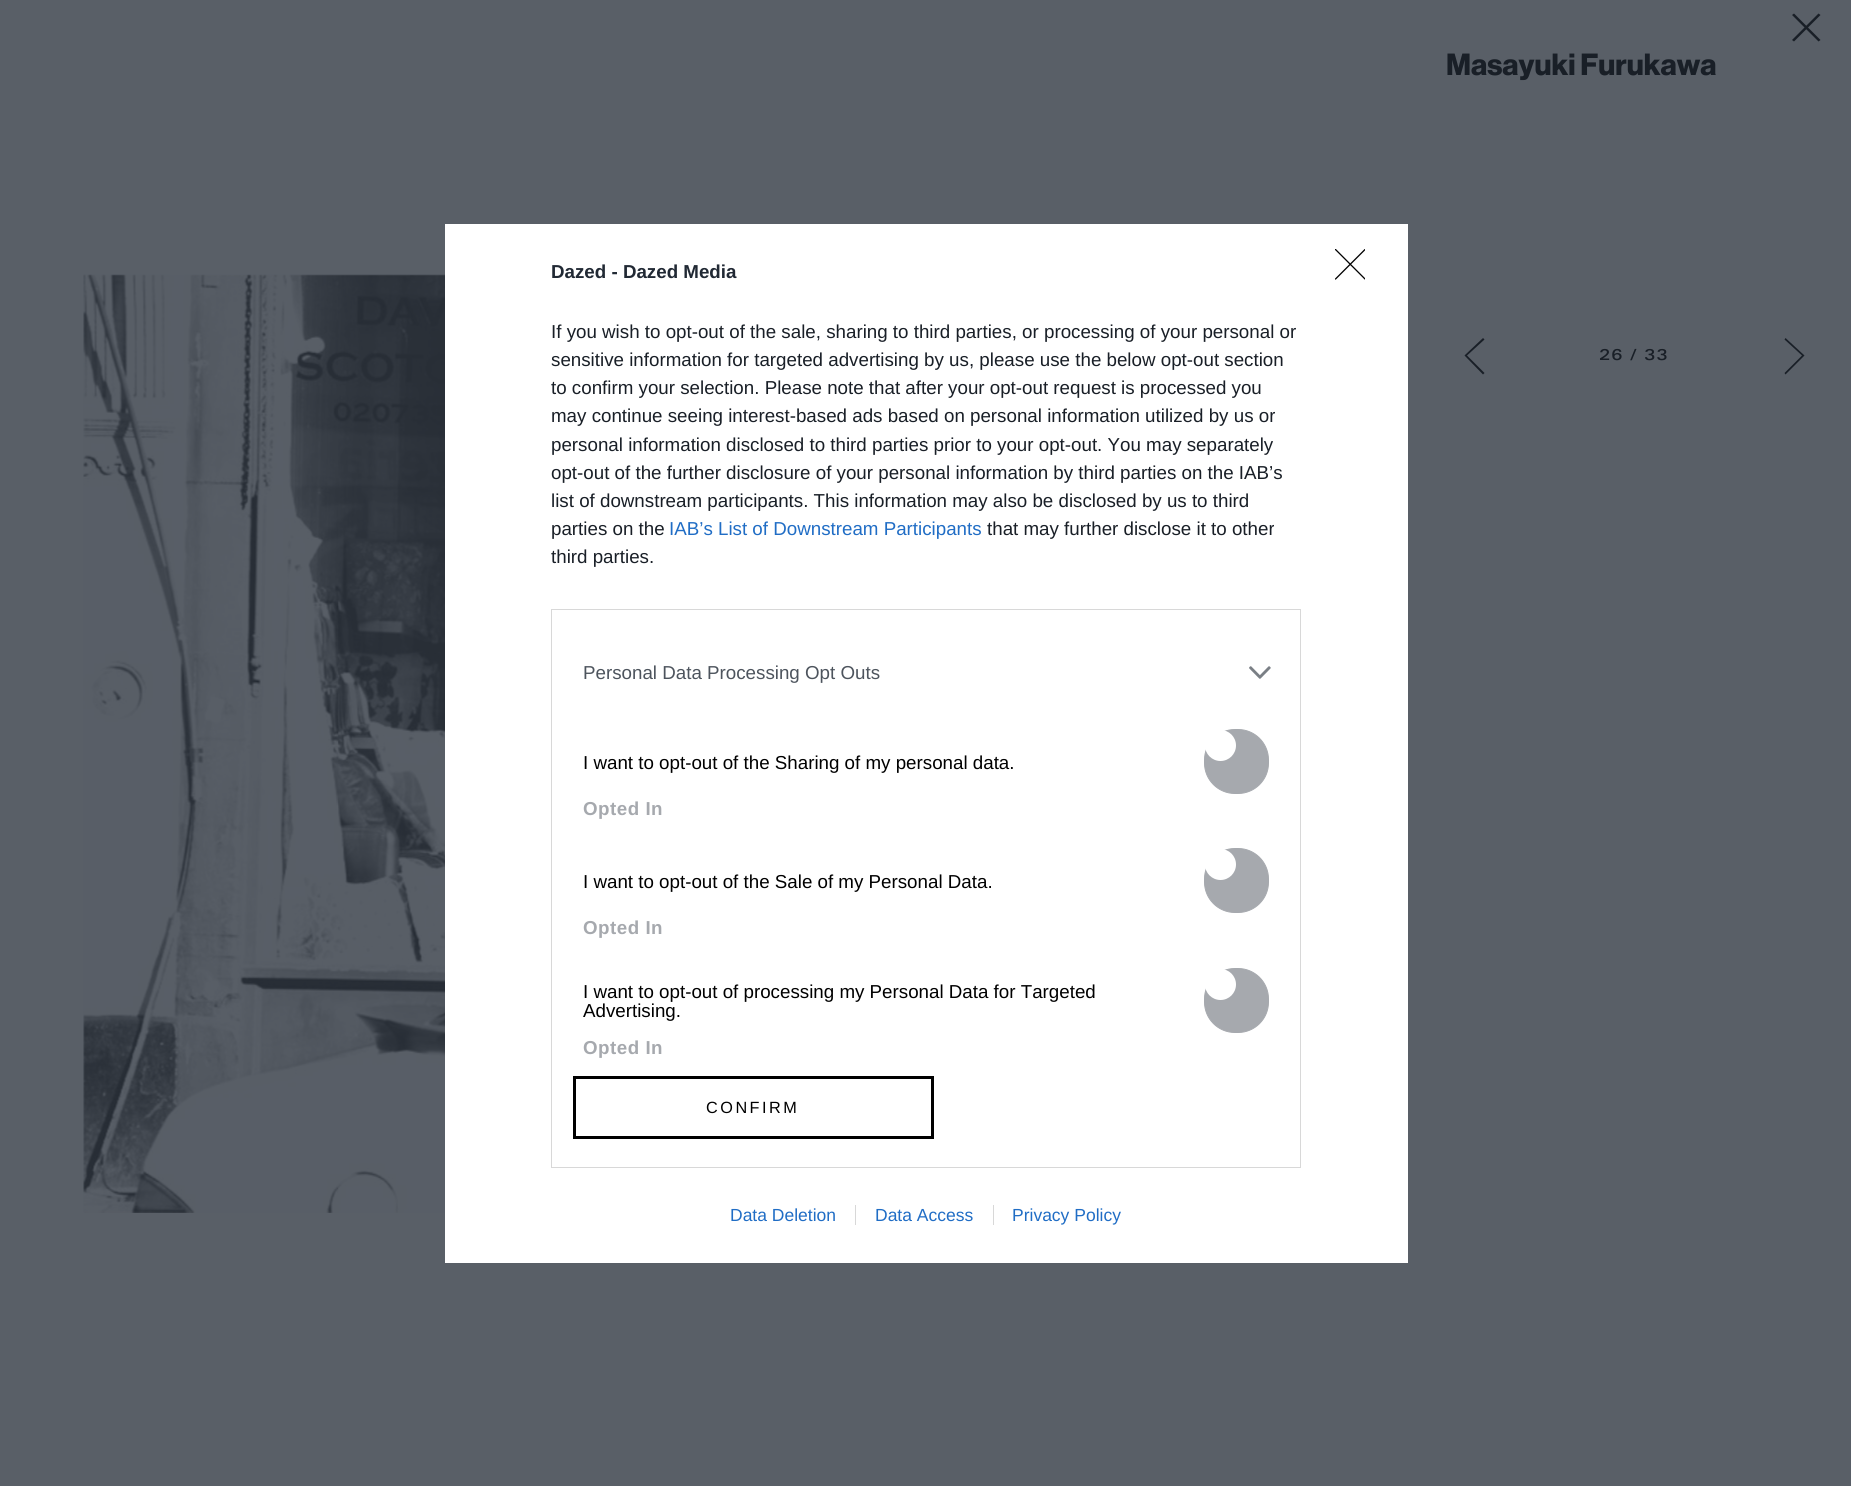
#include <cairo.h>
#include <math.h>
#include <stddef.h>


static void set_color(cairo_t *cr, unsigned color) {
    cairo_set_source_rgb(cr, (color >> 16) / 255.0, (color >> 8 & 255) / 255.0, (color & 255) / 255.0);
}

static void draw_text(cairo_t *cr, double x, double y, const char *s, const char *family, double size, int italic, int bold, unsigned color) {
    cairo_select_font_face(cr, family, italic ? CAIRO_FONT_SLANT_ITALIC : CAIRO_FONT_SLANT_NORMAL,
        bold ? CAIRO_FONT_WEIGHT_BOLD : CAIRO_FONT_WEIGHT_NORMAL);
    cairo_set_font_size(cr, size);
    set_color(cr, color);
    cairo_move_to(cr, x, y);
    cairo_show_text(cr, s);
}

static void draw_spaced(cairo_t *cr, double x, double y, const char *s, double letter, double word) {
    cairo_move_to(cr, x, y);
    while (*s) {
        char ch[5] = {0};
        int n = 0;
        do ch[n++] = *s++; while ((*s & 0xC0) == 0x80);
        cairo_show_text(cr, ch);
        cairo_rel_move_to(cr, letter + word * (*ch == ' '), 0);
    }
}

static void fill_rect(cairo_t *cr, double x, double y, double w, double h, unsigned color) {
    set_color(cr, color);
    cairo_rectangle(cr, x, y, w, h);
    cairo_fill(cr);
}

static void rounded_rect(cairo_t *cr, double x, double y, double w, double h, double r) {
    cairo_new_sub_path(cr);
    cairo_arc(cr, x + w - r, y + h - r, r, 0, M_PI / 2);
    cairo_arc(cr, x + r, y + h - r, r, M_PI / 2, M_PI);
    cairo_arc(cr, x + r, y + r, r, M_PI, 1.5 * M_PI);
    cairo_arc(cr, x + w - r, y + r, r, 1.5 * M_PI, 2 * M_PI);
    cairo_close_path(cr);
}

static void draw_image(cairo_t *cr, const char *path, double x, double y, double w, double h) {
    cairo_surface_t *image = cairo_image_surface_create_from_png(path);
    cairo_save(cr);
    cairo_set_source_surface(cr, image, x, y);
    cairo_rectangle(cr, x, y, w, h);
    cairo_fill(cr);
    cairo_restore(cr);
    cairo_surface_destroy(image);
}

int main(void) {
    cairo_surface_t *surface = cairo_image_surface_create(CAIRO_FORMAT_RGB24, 1851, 1486);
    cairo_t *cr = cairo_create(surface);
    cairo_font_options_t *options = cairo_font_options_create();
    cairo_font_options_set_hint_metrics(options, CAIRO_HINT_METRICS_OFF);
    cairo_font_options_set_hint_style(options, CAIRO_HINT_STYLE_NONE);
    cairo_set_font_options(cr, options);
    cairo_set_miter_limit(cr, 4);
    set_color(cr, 0x595F67);
    cairo_paint(cr);
    set_color(cr, 0x191F27);
    cairo_set_fill_rule(cr, CAIRO_FILL_RULE_EVEN_ODD);
    cairo_new_path(cr);
    cairo_move_to(cr, 1818.5, 13.5);
    cairo_line_to(cr, 1820.5, 15);
    cairo_line_to(cr, 1794, 41.5);
    cairo_line_to(cr, 1792, 40);
    cairo_close_path(cr);
    cairo_fill(cr);
    cairo_new_path(cr);
    cairo_move_to(cr, 1820.5, 40);
    cairo_line_to(cr, 1818.5, 41.5);
    cairo_line_to(cr, 1792, 15);
    cairo_line_to(cr, 1794, 13.5);
    cairo_close_path(cr);
    cairo_fill(cr);
    draw_text(cr, 1446, 75, "Masayuki Furukawa", "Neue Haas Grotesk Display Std", 30, 0, 1, 0x191F27);
    cairo_set_fill_rule(cr, CAIRO_FILL_RULE_WINDING);
    cairo_new_path(cr);
    cairo_move_to(cr, 1465.5, 354.5);
    cairo_line_to(cr, 1483, 338);
    cairo_line_to(cr, 1484.5, 339.5);
    cairo_line_to(cr, 1467, 355.5);
    cairo_line_to(cr, 1484.5, 373);
    cairo_line_to(cr, 1483, 374.5);
    cairo_line_to(cr, 1464.5, 355.5);
    cairo_close_path(cr);
    cairo_fill(cr);
    cairo_select_font_face(cr, "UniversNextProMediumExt", CAIRO_FONT_SLANT_NORMAL, CAIRO_FONT_WEIGHT_NORMAL);
    cairo_set_font_size(cr, 15);
    draw_spaced(cr, 1599, 360, "26 / 33", 1, 0);
    cairo_new_path(cr);
    cairo_move_to(cr, 1802, 355.5);
    cairo_line_to(cr, 1784.5, 339.5);
    cairo_line_to(cr, 1785.5, 338);
    cairo_line_to(cr, 1804.5, 355.5);
    cairo_line_to(cr, 1785.5, 374.5);
    cairo_line_to(cr, 1784.5, 373);
    cairo_close_path(cr);
    cairo_fill(cr);
    draw_image(cr, "assets/img1.png", 83, 274, 362, 939);
    fill_rect(cr, 445, 224, 963, 1039, 0xFFFFFF);
    draw_text(cr, 551, 278, "Dazed - Dazed Media", "Liberation Sans", 18.75, 0, 1, 0x212934);
    draw_text(cr, 551, 338, "If you wish to opt-out of the sale, sharing to third parties, or processing of your personal or", "Liberation Sans", 18.75, 0, 0, 0x191F27);
    draw_text(cr, 551, 366, "sensitive information for targeted advertising by us, please use the below opt-out section", "Liberation Sans", 18.75, 0, 0, 0x191F27);
    draw_text(cr, 551, 394, "to confirm your selection. Please note that after your opt-out request is processed you", "Liberation Sans", 18.75, 0, 0, 0x191F27);
    draw_text(cr, 551, 422, "may continue seeing interest-based ads based on personal information utilized by us or", "Liberation Sans", 18.75, 0, 0, 0x191F27);
    draw_text(cr, 551, 451, "personal information disclosed to third parties prior to your opt-out. You may separately", "Liberation Sans", 18.75, 0, 0, 0x191F27);
    draw_text(cr, 551, 479, "opt-out of the further disclosure of your personal information by third parties on the IAB’s", "Liberation Sans", 18.75, 0, 0, 0x191F27);
    draw_text(cr, 551, 507, "list of downstream participants. This information may also be disclosed by us to third", "Liberation Sans", 18.75, 0, 0, 0x191F27);
    draw_text(cr, 551, 535, "parties on the", "Liberation Sans", 18.75, 0, 0, 0x191F27);
    draw_text(cr, 669, 535, "IAB’s List of Downstream Participants", "Liberation Sans", 18.75, 0, 0, 0x206DC5);
    draw_text(cr, 987, 535, "that may further disclose it to other", "Liberation Sans", 18.75, 0, 0, 0x191F27);
    draw_text(cr, 551, 563, "third parties.", "Liberation Sans", 18.75, 0, 0, 0x191F27);
    cairo_rectangle(cr, 551.5, 609.5, 749, 558);
    set_color(cr, 0xD8D8D8);
    cairo_set_line_width(cr, 1);
    cairo_stroke(cr);
    draw_text(cr, 583, 679, "Personal Data Processing Opt Outs", "Liberation Sans", 18.75, 0, 0, 0x4D545D);
    draw_image(cr, "assets/img2.png", 1249, 666, 22, 13);
    draw_text(cr, 583, 769, "I want to opt-out of the Sharing of my personal data.", "Liberation Sans", 18.75, 0, 0, 0x000000);
    set_color(cr, 0xA6A9AE);
    rounded_rect(cr, 1204.5, 729.5, 64, 64, 30.5);
    cairo_fill_preserve(cr);
    cairo_stroke(cr);
    set_color(cr, 0xFFFFFF);
    cairo_arc(cr, 1220.5, 745.5, 15.5, 0, 2 * M_PI);
    cairo_fill(cr);
    cairo_select_font_face(cr, "Liberation Sans", CAIRO_FONT_SLANT_NORMAL, CAIRO_FONT_WEIGHT_BOLD);
    set_color(cr, 0xA6A9AE);
    draw_spaced(cr, 583, 815, "Opted In", 0.5, 0);
    draw_text(cr, 583, 888, "I want to opt-out of the Sale of my Personal Data.", "Liberation Sans", 18.75, 0, 0, 0x000000);
    set_color(cr, 0xA6A9AE);
    rounded_rect(cr, 1204.5, 848.5, 64, 64, 30.5);
    cairo_fill_preserve(cr);
    cairo_stroke(cr);
    set_color(cr, 0xFFFFFF);
    cairo_arc(cr, 1220.5, 864.5, 15.5, 0, 2 * M_PI);
    cairo_fill(cr);
    cairo_select_font_face(cr, "Liberation Sans", CAIRO_FONT_SLANT_NORMAL, CAIRO_FONT_WEIGHT_BOLD);
    set_color(cr, 0xA6A9AE);
    draw_spaced(cr, 583, 934, "Opted In", 0.5, 0);
    draw_text(cr, 583, 998, "I want to opt-out of processing my Personal Data for Targeted", "Liberation Sans", 18.75, 0, 0, 0x000000);
    draw_text(cr, 583, 1017, "Advertising.", "Liberation Sans", 18.75, 0, 0, 0x000000);
    set_color(cr, 0xA6A9AE);
    rounded_rect(cr, 1204.5, 968.5, 64, 64, 30.5);
    cairo_fill_preserve(cr);
    cairo_stroke(cr);
    set_color(cr, 0xFFFFFF);
    cairo_arc(cr, 1220.5, 984.5, 15.5, 0, 2 * M_PI);
    cairo_fill(cr);
    cairo_select_font_face(cr, "Liberation Sans", CAIRO_FONT_SLANT_NORMAL, CAIRO_FONT_WEIGHT_BOLD);
    set_color(cr, 0xA6A9AE);
    draw_spaced(cr, 583, 1054, "Opted In", 0.5, 0);
    cairo_rectangle(cr, 574.5, 1077.5, 358, 60);
    set_color(cr, 0x000000);
    cairo_set_line_width(cr, 3);
    cairo_stroke(cr);
    cairo_select_font_face(cr, "Liberation Sans", CAIRO_FONT_SLANT_NORMAL, CAIRO_FONT_WEIGHT_NORMAL);
    cairo_set_font_size(cr, 16.25);
    draw_spaced(cr, 706, 1113, "CONFIRM", 2.5, 0);
    cairo_save(cr);
    cairo_rectangle(cr, 1335, 249, 30, 31);
    cairo_clip(cr);
    cairo_new_path(cr);
    cairo_move_to(cr, 1335.5, 249.5);
    cairo_line_to(cr, 1365, 279);
    cairo_move_to(cr, 1365, 249.5);
    cairo_line_to(cr, 1335.5, 279);
    cairo_set_line_width(cr, 1.3);
    cairo_set_line_cap(cr, CAIRO_LINE_CAP_ROUND);
    cairo_set_line_join(cr, CAIRO_LINE_JOIN_ROUND);
    cairo_stroke(cr);
    cairo_restore(cr);
    draw_text(cr, 730, 1221, "Data Deletion", "Liberation Sans", 17.5, 0, 0, 0x206DC5);
    draw_text(cr, 875, 1221, "Data Access", "Liberation Sans", 17.5, 0, 0, 0x206DC5);
    fill_rect(cr, 855, 1205, 1, 20, 0xD8D8D8);
    draw_text(cr, 1012, 1221, "Privacy Policy", "Liberation Sans", 17.5, 0, 0, 0x206DC5);
    fill_rect(cr, 993, 1205, 1, 20, 0xD8D8D8);
    cairo_surface_write_to_png(surface, "output.png");
    cairo_font_options_destroy(options);
    cairo_destroy(cr);
    cairo_surface_destroy(surface);
    return 0;
}
